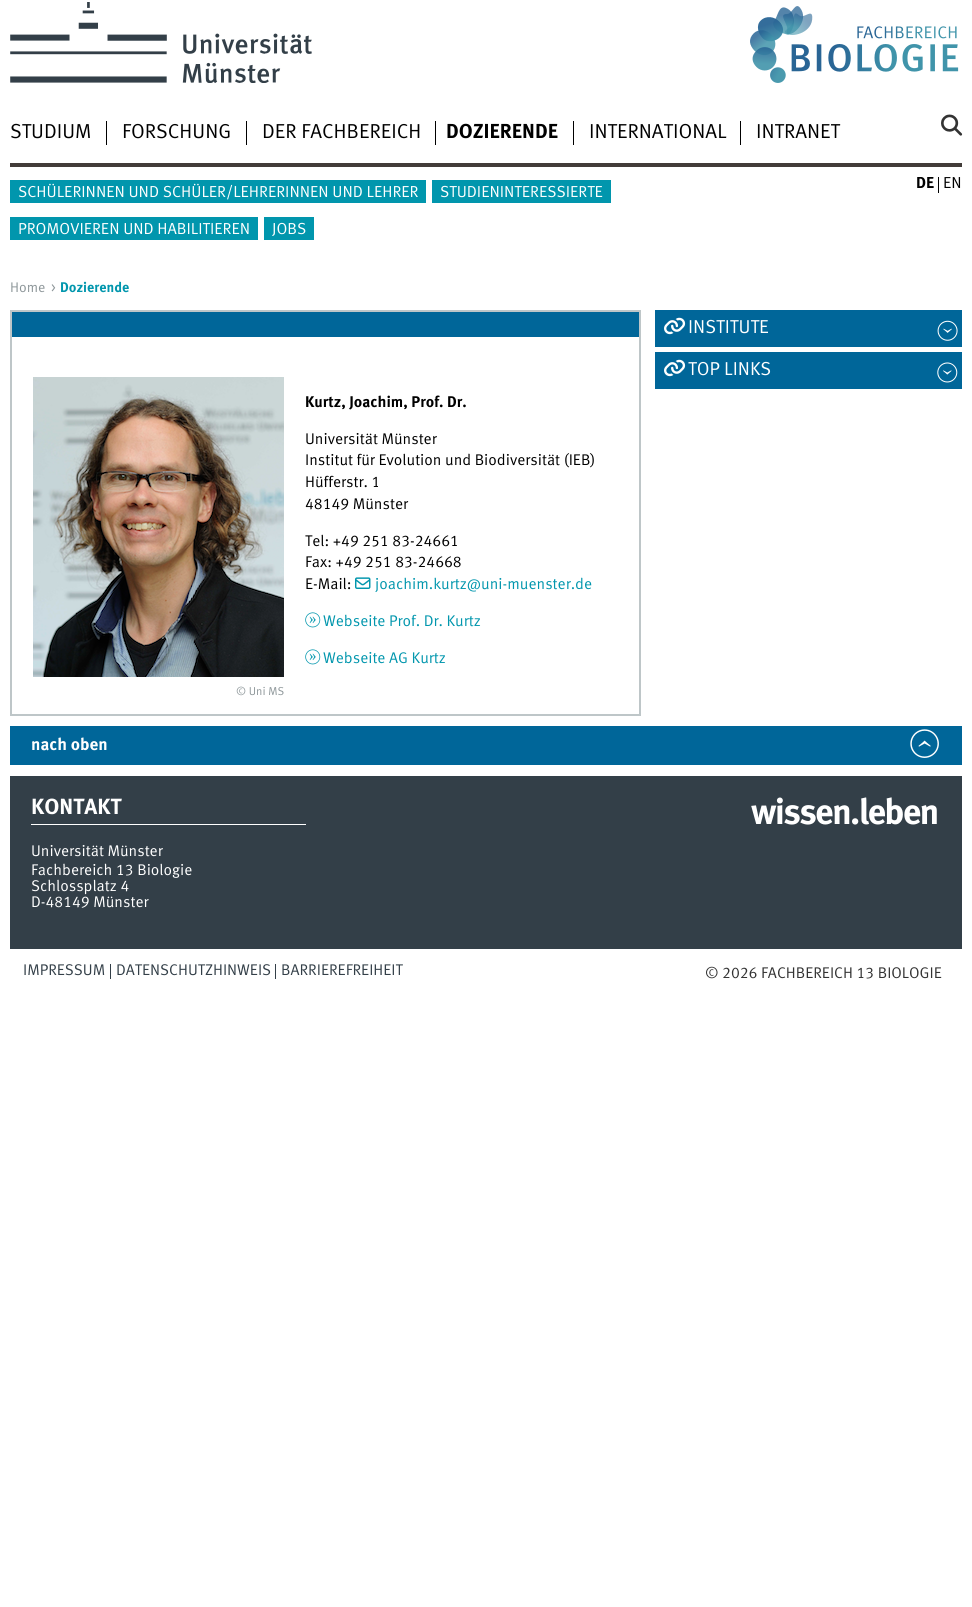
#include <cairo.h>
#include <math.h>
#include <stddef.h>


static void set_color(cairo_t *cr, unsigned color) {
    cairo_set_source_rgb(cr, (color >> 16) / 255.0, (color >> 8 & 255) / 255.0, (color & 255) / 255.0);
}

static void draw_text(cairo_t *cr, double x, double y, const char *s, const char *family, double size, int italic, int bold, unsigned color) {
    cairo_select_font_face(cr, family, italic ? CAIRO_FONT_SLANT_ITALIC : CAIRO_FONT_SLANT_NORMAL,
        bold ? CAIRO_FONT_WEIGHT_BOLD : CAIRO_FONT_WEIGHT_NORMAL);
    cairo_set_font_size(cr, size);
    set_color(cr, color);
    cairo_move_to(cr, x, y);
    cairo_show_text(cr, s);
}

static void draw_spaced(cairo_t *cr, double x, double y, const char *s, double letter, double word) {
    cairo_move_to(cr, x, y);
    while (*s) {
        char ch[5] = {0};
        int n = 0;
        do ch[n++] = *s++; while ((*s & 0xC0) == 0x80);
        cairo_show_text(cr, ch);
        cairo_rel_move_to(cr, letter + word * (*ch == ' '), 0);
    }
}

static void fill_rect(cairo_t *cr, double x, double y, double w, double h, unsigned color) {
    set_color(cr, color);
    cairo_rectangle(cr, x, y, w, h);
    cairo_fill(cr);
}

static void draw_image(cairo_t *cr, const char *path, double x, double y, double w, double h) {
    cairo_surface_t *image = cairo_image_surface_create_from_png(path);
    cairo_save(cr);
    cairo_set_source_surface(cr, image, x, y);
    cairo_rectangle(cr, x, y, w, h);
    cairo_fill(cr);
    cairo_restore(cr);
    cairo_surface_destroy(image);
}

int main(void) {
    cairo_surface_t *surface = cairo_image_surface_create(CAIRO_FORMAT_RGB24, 972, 1607);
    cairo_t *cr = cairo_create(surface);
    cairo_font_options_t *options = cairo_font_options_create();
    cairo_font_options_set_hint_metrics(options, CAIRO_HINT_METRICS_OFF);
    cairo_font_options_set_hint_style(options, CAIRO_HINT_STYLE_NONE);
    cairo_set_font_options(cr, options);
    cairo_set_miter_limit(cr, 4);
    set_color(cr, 0xFFFFFF);
    cairo_paint(cr);
    draw_image(cr, "assets/img1.png", 10, 2, 302, 81);
    draw_image(cr, "assets/img2.png", 750, 6, 209, 77);
    fill_rect(cr, 10, 163, 952, 4, 0x423C39);
    draw_text(cr, 10, 138, "STUDIUM", "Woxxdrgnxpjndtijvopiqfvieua", 20.25, 0, 0, 0x000000);
    fill_rect(cr, 106, 121, 1, 24, 0x000000);
    draw_text(cr, 122, 138, "FORSCHUNG", "Woxxdrgnxpjndtijvopiqfvieua", 20.25, 0, 0, 0x000000);
    fill_rect(cr, 246, 121, 1, 24, 0x000000);
    draw_text(cr, 262, 138, "DER FACHBEREICH", "Woxxdrgnxpjndtijvopiqfvieua", 20.25, 0, 0, 0x000000);
    fill_rect(cr, 435, 121, 1, 24, 0x000000);
    draw_text(cr, 446, 138, "DOZIERENDE", "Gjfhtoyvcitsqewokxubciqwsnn", 20.25, 0, 1, 0x000000);
    fill_rect(cr, 573, 121, 1, 24, 0x000000);
    draw_text(cr, 589, 138, "INTERNATIONAL", "Woxxdrgnxpjndtijvopiqfvieua", 20.25, 0, 0, 0x000000);
    fill_rect(cr, 740, 121, 1, 24, 0x000000);
    draw_text(cr, 756, 138, "INTRANET", "Woxxdrgnxpjndtijvopiqfvieua", 20.25, 0, 0, 0x000000);
    draw_image(cr, "assets/img3.png", 941, 114, 22, 22);
    fill_rect(cr, 10, 180, 416, 23, 0x0196AD);
    draw_text(cr, 18, 197, "SCHÜLERINNEN UND SCHÜLER/LEHRERINNEN UND LEHRER", "Woxxdrgnxpjndtijvopiqfvieua", 15.95, 0, 0, 0xFFFFFF);
    fill_rect(cr, 432, 180, 179, 23, 0x0196AD);
    draw_text(cr, 440, 197, "STUDIENINTERESSIERTE", "Woxxdrgnxpjndtijvopiqfvieua", 15.95, 0, 0, 0xFFFFFF);
    fill_rect(cr, 10, 217, 248, 23, 0x0196AD);
    draw_text(cr, 18, 234, "PROMOVIEREN UND HABILITIEREN", "Woxxdrgnxpjndtijvopiqfvieua", 15.95, 0, 0, 0xFFFFFF);
    fill_rect(cr, 264, 217, 50, 23, 0x0196AD);
    draw_text(cr, 272, 234, "JOBS", "Woxxdrgnxpjndtijvopiqfvieua", 15.95, 0, 0, 0xFFFFFF);
    cairo_save(cr);
    cairo_rectangle(cr, 912, 177, 50, 16);
    cairo_clip(cr);
    draw_text(cr, 916, 188, "DE", "Gjfhtoyvcitsqewokxubciqwsnn", 15.95, 0, 1, 0x000000);
    cairo_restore(cr);
    fill_rect(cr, 938, 177, 1, 16, 0x000000);
    draw_text(cr, 943, 188, "EN", "Woxxdrgnxpjndtijvopiqfvieua", 15.95, 0, 0, 0x000000);
    draw_text(cr, 10, 292, "Home", "Woxxdrgnxpjndtijvopiqfvieua", 14, 0, 0, 0x8C9598);
    draw_text(cr, 51, 292, ">", "Woxxdrgnxpjndtijvopiqfvieua", 14, 0, 0, 0x8C9598);
    draw_text(cr, 60, 292, "Dozierende", "Gjfhtoyvcitsqewokxubciqwsnn", 14, 0, 1, 0x0196AD);
    fill_rect(cr, 655, 310, 307, 37, 0x006699);
    draw_image(cr, "assets/img4.png", 664, 317, 22, 18);
    draw_text(cr, 688, 333, "INSTITUTE", "Woxxdrgnxpjndtijvopiqfvieua", 18.75, 0, 0, 0xFFFFFF);
    draw_image(cr, "assets/img5.png", 937, 320, 21, 21);
    fill_rect(cr, 655, 352, 307, 37, 0x006699);
    draw_image(cr, "assets/img4.png", 664, 359, 22, 18);
    draw_text(cr, 688, 375, "TOP LINKS", "Woxxdrgnxpjndtijvopiqfvieua", 18.75, 0, 0, 0xFFFFFF);
    draw_image(cr, "assets/img6.png", 937, 362, 21, 21);
    cairo_rectangle(cr, 11, 311, 629, 404);
    set_color(cr, 0xBEC6C8);
    cairo_stroke(cr);
    fill_rect(cr, 12, 312, 627, 25, 0x006699);
    draw_text(cr, 305, 407, "Kurtz, Joachim, Prof. Dr.", "Gjfhtoyvcitsqewokxubciqwsnn", 15.5, 0, 1, 0x000000);
    draw_text(cr, 305, 444, "Universität Münster", "Woxxdrgnxpjndtijvopiqfvieua", 15.5, 0, 0, 0x000000);
    draw_text(cr, 305, 465, "Institut für Evolution und Biodiversität (IEB)", "Woxxdrgnxpjndtijvopiqfvieua", 15.5, 0, 0, 0x000000);
    draw_text(cr, 305, 487, "Hüfferstr. 1", "Woxxdrgnxpjndtijvopiqfvieua", 15.5, 0, 0, 0x000000);
    draw_text(cr, 305, 509, "48149 Münster", "Woxxdrgnxpjndtijvopiqfvieua", 15.5, 0, 0, 0x000000);
    draw_text(cr, 305, 546, "Tel: +49 251 83-24661", "Woxxdrgnxpjndtijvopiqfvieua", 15.5, 0, 0, 0x000000);
    draw_text(cr, 305, 567, "Fax: +49 251 83-24668", "Woxxdrgnxpjndtijvopiqfvieua", 15.5, 0, 0, 0x000000);
    draw_text(cr, 305, 589, "E-Mail:", "Woxxdrgnxpjndtijvopiqfvieua", 15.5, 0, 0, 0x000000);
    draw_image(cr, "assets/img7.png", 355, 577, 16, 12);
    draw_text(cr, 375, 589, "joachim.kurtz@uni-muenster.de", "Woxxdrgnxpjndtijvopiqfvieua", 15.5, 0, 0, 0x0196AD);
    draw_image(cr, "assets/img8.png", 305, 612, 16, 16);
    draw_text(cr, 323, 626, "Webseite Prof. Dr. Kurtz", "Woxxdrgnxpjndtijvopiqfvieua", 15.5, 0, 0, 0x0196AD);
    draw_image(cr, "assets/img8.png", 305, 649, 16, 16);
    draw_text(cr, 323, 663, "Webseite AG Kurtz", "Woxxdrgnxpjndtijvopiqfvieua", 15.5, 0, 0, 0x0196AD);
    draw_image(cr, "assets/img9.png", 33, 377, 251, 300);
    draw_text(cr, 236, 695, "© Uni MS", "Woxxdrgnxpjndtijvopiqfvieua", 11.5, 0, 0, 0x8C9598);
    fill_rect(cr, 10, 726, 952, 39, 0x006699);
    draw_text(cr, 31, 750, "nach oben", "Gjfhtoyvcitsqewokxubciqwsnn", 17, 0, 1, 0xFFFFFF);
    draw_image(cr, "assets/img10.png", 910, 729, 29, 29);
    fill_rect(cr, 10, 776, 952, 173, 0x333F48);
    fill_rect(cr, 31, 824, 275, 1, 0xFFFFFF);
    draw_text(cr, 31, 814, "KONTAKT", "Gjfhtoyvcitsqewokxubciqwsnn", 22, 0, 1, 0xFFFFFF);
    draw_text(cr, 31, 856, "Universität Münster", "Woxxdrgnxpjndtijvopiqfvieua", 15.5, 0, 0, 0xFFFFFF);
    draw_text(cr, 31, 875, "Fachbereich 13 Biologie", "Woxxdrgnxpjndtijvopiqfvieua", 15.5, 0, 0, 0xFFFFFF);
    draw_text(cr, 31, 891, "Schlossplatz 4", "Woxxdrgnxpjndtijvopiqfvieua", 15.5, 0, 0, 0xFFFFFF);
    draw_text(cr, 31, 907, "D-48149 Münster", "Woxxdrgnxpjndtijvopiqfvieua", 15.5, 0, 0, 0xFFFFFF);
    cairo_select_font_face(cr, "Gjfhtoyvcitsqewokxubciqwsnn", CAIRO_FONT_SLANT_NORMAL, CAIRO_FONT_WEIGHT_BOLD);
    cairo_set_font_size(cr, 36);
    draw_spaced(cr, 751, 824, "wissen.leben", -1.75, 0);
    draw_text(cr, 23, 975, "IMPRESSUM", "Woxxdrgnxpjndtijvopiqfvieua", 15.5, 0, 0, 0x333F48);
    fill_rect(cr, 110, 964, 1, 15, 0x333F48);
    draw_text(cr, 116, 975, "DATENSCHUTZHINWEIS", "Woxxdrgnxpjndtijvopiqfvieua", 15.5, 0, 0, 0x333F48);
    fill_rect(cr, 275, 964, 1, 15, 0x333F48);
    draw_text(cr, 281, 975, "BARRIEREFREIHEIT", "Woxxdrgnxpjndtijvopiqfvieua", 15.5, 0, 0, 0x333F48);
    draw_text(cr, 705, 978, "© 2026 FACHBEREICH 13 BIOLOGIE", "Woxxdrgnxpjndtijvopiqfvieua", 15.5, 0, 0, 0x333333);
    cairo_surface_write_to_png(surface, "output.png");
    cairo_font_options_destroy(options);
    cairo_destroy(cr);
    cairo_surface_destroy(surface);
    return 0;
}
